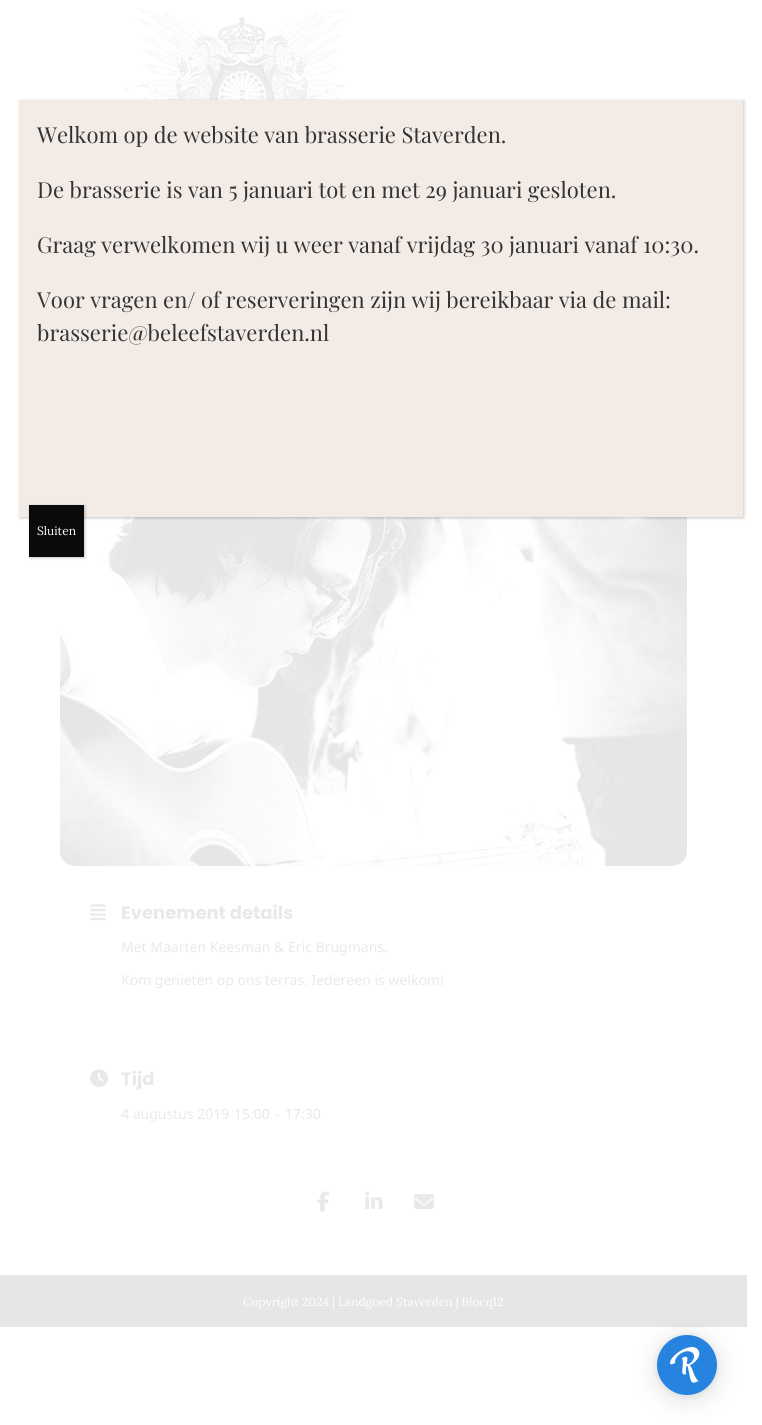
#include <cairo.h>
#include <math.h>
#include <stddef.h>


static void set_color(cairo_t *cr, unsigned color) {
    cairo_set_source_rgb(cr, (color >> 16) / 255.0, (color >> 8 & 255) / 255.0, (color & 255) / 255.0);
}

static void draw_text(cairo_t *cr, double x, double y, const char *s, const char *family, double size, int italic, int bold, unsigned color) {
    cairo_select_font_face(cr, family, italic ? CAIRO_FONT_SLANT_ITALIC : CAIRO_FONT_SLANT_NORMAL,
        bold ? CAIRO_FONT_WEIGHT_BOLD : CAIRO_FONT_WEIGHT_NORMAL);
    cairo_set_font_size(cr, size);
    set_color(cr, color);
    cairo_move_to(cr, x, y);
    cairo_show_text(cr, s);
}

static void fill_rect(cairo_t *cr, double x, double y, double w, double h, unsigned color) {
    set_color(cr, color);
    cairo_rectangle(cr, x, y, w, h);
    cairo_fill(cr);
}

static void rounded_rect(cairo_t *cr, double x, double y, double w, double h, double r) {
    cairo_new_sub_path(cr);
    cairo_arc(cr, x + w - r, y + h - r, r, 0, M_PI / 2);
    cairo_arc(cr, x + r, y + h - r, r, M_PI / 2, M_PI);
    cairo_arc(cr, x + r, y + r, r, M_PI, 1.5 * M_PI);
    cairo_arc(cr, x + w - r, y + r, r, 1.5 * M_PI, 2 * M_PI);
    cairo_close_path(cr);
}

static void draw_shadow(cairo_t *cr, double x, double y, double w, double h, double r, double blur, double alpha) {
    cairo_push_group_with_content(cr, CAIRO_CONTENT_ALPHA);
    cairo_set_operator(cr, CAIRO_OPERATOR_SOURCE);
    for (int i = 15; i >= -15 && fmin(w, h) + blur * i / 3 > 0; i -= 2) {
        double e = blur * i / 6;
        cairo_set_source_rgba(cr, 0, 0, 0, alpha * erfc((i - 1) / 8.5) / 2);
        rounded_rect(cr, x - e, y - e, w + 2 * e, h + 2 * e, fmax(0, fmin(r + e + blur * .6, fmin(w, h) / 2 + e)));
        cairo_fill(cr);
    }
    cairo_pattern_t *soft = cairo_pop_group(cr);
    cairo_mask(cr, soft);
    cairo_pattern_destroy(soft);
}

static void draw_image(cairo_t *cr, const char *path, double x, double y, double w, double h) {
    cairo_surface_t *image = cairo_image_surface_create_from_png(path);
    cairo_save(cr);
    cairo_set_source_surface(cr, image, x, y);
    cairo_rectangle(cr, x, y, w, h);
    cairo_fill(cr);
    cairo_restore(cr);
    cairo_surface_destroy(image);
}

int main(void) {
    cairo_surface_t *surface = cairo_image_surface_create(CAIRO_FORMAT_RGB24, 762, 1425);
    cairo_t *cr = cairo_create(surface);
    cairo_font_options_t *options = cairo_font_options_create();
    cairo_font_options_set_hint_metrics(options, CAIRO_HINT_METRICS_OFF);
    cairo_font_options_set_hint_style(options, CAIRO_HINT_STYLE_NONE);
    cairo_set_font_options(cr, options);
    cairo_set_miter_limit(cr, 4);
    set_color(cr, 0xFFFFFF);
    cairo_paint(cr);
    draw_image(cr, "assets/img1.png", 124, 8, 224, 92);
    set_color(cr, 0xEBEBEB);
    rounded_rect(cr, 60, 466, 627, 400, 15);
    cairo_fill(cr);
    draw_image(cr, "assets/img2.png", 60, 517, 627, 349);
    set_color(cr, 0x020202);
    draw_shadow(cr, 20, 101, 724, 417, 0, 1.5, 0.23);
    fill_rect(cr, 19, 100, 724, 417, 0xF3EBE6);
    draw_text(cr, 37, 143, "Welkom op de website van brasserie Staverden.", "Playfair Display", 22, 0, 0, 0x333333);
    draw_text(cr, 37, 198, "De brasserie is van 5 januari tot en met 29 januari gesloten.", "Playfair Display", 22, 0, 0, 0x333333);
    draw_text(cr, 37, 253, "Graag verwelkomen wij u weer vanaf vrijdag 30 januari vanaf 10:30.", "Playfair Display", 22, 0, 0, 0x333333);
    draw_text(cr, 37, 308, "Voor vragen en/ of reserveringen zijn wij bereikbaar via de mail:", "Playfair Display", 22, 0, 0, 0x333333);
    draw_text(cr, 37, 341, "brasserie@beleefstaverden.nl", "Playfair Display", 22, 0, 0, 0x333333);
    set_color(cr, 0x020202);
    draw_shadow(cr, 30, 506, 55, 52, 0, 1.5, 0.23);
    fill_rect(cr, 29, 505, 55, 52, 0x0A0A0A);
    draw_text(cr, 37, 535, "Sluiten", "Lora", 12, 0, 0, 0xFFFFFF);
    draw_image(cr, "assets/img3.png", 90, 904, 16, 17);
    draw_text(cr, 121, 919, "Evenement details", "Poppins", 18, 0, 1, 0xE9E9E9);
    draw_text(cr, 121, 952, "Met Maarten Keesman & Eric Brugmans.", "Noto Sans", 14, 0, 0, 0xE9E9E9);
    draw_text(cr, 121, 985, "Kom genieten op ons terras. Iedereen is welkom!", "Noto Sans", 14, 0, 0, 0xE9E9E9);
    draw_image(cr, "assets/img4.png", 90, 1069, 18, 19);
    draw_text(cr, 121, 1085, "Tijd", "Poppins", 18, 0, 1, 0xE9E9E9);
    draw_text(cr, 121, 1119, "4 augustus 2019", "Noto Sans", 14, 0, 0, 0xE9E9E9);
    draw_text(cr, 234, 1119, "15:00", "Noto Sans", 14, 0, 0, 0xE9E9E9);
    draw_text(cr, 275, 1119, "-", "Noto Sans", 14, 0, 0, 0xE9E9E9);
    draw_text(cr, 285, 1119, "17:30", "Noto Sans", 14, 0, 0, 0xE9E9E9);
    draw_image(cr, "assets/img5.png", 317, 1191, 12, 21);
    draw_image(cr, "assets/img6.png", 365, 1191, 18, 18);
    draw_image(cr, "assets/img7.png", 414, 1194, 20, 15);
    fill_rect(cr, 0, 1275, 747, 52, 0xE6E6E6);
    draw_text(cr, 243, 1306, "Copyright 2024 | Landgoed Staverden | Blocq12", "Lora", 12, 0, 0, 0xFFFFFF);
    set_color(cr, 0x000000);
    draw_shadow(cr, 657, 1336, 60, 60, 30, 3, 0.08);
    draw_shadow(cr, 657, 1339, 60, 60, 30, 13, 0.12);
    set_color(cr, 0x2684E0);
    cairo_arc(cr, 687, 1365, 30, 0, 2 * M_PI);
    cairo_fill(cr);
    draw_image(cr, "assets/img8.png", 670, 1347, 30, 36);
    cairo_surface_write_to_png(surface, "output.png");
    cairo_font_options_destroy(options);
    cairo_destroy(cr);
    cairo_surface_destroy(surface);
    return 0;
}
